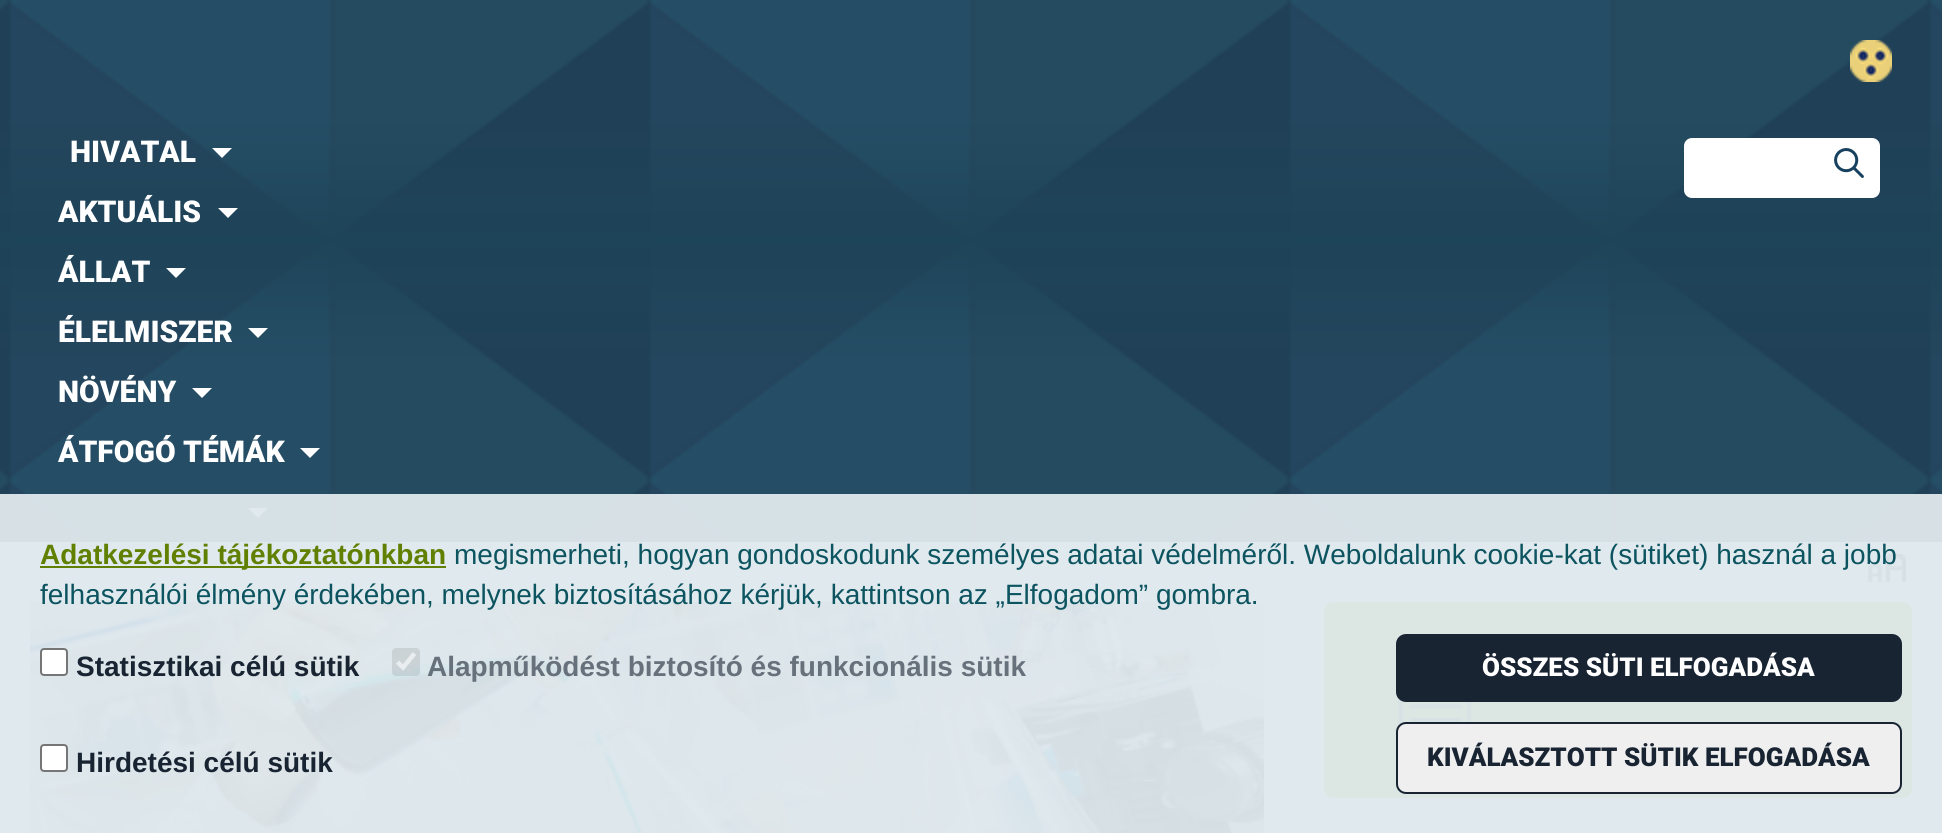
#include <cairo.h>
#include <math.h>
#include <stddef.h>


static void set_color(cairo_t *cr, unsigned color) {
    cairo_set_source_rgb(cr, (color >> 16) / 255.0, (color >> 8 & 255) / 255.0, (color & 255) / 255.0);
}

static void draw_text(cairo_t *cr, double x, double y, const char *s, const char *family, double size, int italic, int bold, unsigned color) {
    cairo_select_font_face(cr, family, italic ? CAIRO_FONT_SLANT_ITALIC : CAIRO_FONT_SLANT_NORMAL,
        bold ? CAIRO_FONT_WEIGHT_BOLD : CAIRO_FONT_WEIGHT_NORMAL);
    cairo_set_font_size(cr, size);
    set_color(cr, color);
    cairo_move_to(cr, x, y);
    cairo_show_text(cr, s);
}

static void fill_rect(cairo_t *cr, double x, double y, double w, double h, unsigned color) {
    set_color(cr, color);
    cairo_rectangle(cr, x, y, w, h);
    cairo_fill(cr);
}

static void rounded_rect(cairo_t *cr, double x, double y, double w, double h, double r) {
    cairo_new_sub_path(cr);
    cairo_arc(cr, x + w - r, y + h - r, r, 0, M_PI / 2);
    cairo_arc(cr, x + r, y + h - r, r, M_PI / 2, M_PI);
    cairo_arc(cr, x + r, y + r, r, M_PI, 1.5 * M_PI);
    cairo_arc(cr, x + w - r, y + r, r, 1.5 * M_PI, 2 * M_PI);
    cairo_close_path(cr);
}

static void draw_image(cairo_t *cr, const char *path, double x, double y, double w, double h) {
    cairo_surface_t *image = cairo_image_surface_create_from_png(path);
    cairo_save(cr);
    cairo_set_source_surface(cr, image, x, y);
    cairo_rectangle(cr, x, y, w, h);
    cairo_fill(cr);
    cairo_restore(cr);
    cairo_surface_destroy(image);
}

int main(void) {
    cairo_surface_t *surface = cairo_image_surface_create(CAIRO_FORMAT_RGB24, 1942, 833);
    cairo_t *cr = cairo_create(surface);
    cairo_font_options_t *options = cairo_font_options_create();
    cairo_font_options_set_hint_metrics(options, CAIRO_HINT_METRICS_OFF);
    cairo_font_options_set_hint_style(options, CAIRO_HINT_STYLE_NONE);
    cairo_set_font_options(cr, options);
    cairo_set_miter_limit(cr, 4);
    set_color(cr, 0xFFFFFF);
    cairo_paint(cr);
    draw_image(cr, "assets/img1.png", 0, 0, 1942, 542);
    draw_image(cr, "assets/img2.png", 1850, 40, 42, 42);
    draw_text(cr, 70, 162, "HIVATAL", "Roboto Black", 30, 0, 0, 0xFFFFFF);
    cairo_new_path(cr);
    cairo_move_to(cr, 212, 148);
    cairo_line_to(cr, 232, 148);
    cairo_line_to(cr, 222, 158);
    cairo_close_path(cr);
    cairo_fill(cr);
    draw_text(cr, 58, 222, "AKTUÁLIS", "Roboto Black", 30, 0, 0, 0xFFFFFF);
    cairo_new_path(cr);
    cairo_move_to(cr, 218, 208);
    cairo_line_to(cr, 238, 208);
    cairo_line_to(cr, 228, 218);
    cairo_close_path(cr);
    cairo_fill(cr);
    draw_text(cr, 58, 282, "ÁLLAT", "Roboto Black", 30, 0, 0, 0xFFFFFF);
    cairo_new_path(cr);
    cairo_move_to(cr, 166, 268);
    cairo_line_to(cr, 186, 268);
    cairo_line_to(cr, 176, 278);
    cairo_close_path(cr);
    cairo_fill(cr);
    draw_text(cr, 58, 342, "ÉLELMISZER", "Roboto Black", 30, 0, 0, 0xFFFFFF);
    cairo_new_path(cr);
    cairo_move_to(cr, 248, 328);
    cairo_line_to(cr, 268, 328);
    cairo_line_to(cr, 258, 338);
    cairo_close_path(cr);
    cairo_fill(cr);
    draw_text(cr, 58, 402, "NÖVÉNY", "Roboto Black", 30, 0, 0, 0xFFFFFF);
    cairo_new_path(cr);
    cairo_move_to(cr, 192, 388);
    cairo_line_to(cr, 212, 388);
    cairo_line_to(cr, 202, 398);
    cairo_close_path(cr);
    cairo_fill(cr);
    draw_text(cr, 58, 462, "ÁTFOGÓ TÉMÁK", "Roboto Black", 30, 0, 0, 0xFFFFFF);
    cairo_new_path(cr);
    cairo_move_to(cr, 300, 448);
    cairo_line_to(cr, 320, 448);
    cairo_line_to(cr, 310, 458);
    cairo_close_path(cr);
    cairo_fill(cr);
    cairo_new_path(cr);
    cairo_move_to(cr, 248, 508);
    cairo_line_to(cr, 268, 508);
    cairo_line_to(cr, 258, 518);
    cairo_close_path(cr);
    cairo_fill(cr);
    rounded_rect(cr, 1684, 138, 196, 60, 8);
    cairo_fill(cr);
    draw_image(cr, "assets/img3.png", 1834, 148, 30, 30);
    draw_image(cr, "assets/img4.png", 1868, 554, 38, 28);
    draw_image(cr, "assets/img5.png", 30, 602, 1234, 231);
    set_color(cr, 0xA5CD39);
    rounded_rect(cr, 1324, 602, 588, 196, 10);
    cairo_fill(cr);
    draw_image(cr, "assets/img6.png", 1324, 602, 588, 196);
    cairo_set_source_rgba(cr, 0.875, 0.91, 0.929, 0.95);
    cairo_rectangle(cr, 0, 494, 1942, 339);
    cairo_fill(cr);
    fill_rect(cr, 40, 566, 406, 2, 0x5F8001);
    draw_text(cr, 40, 564, "Adatkezelési tájékoztatónkban", "Liberation Sans", 28, 0, 1, 0x5F8001);
    draw_text(cr, 454, 564, "megismerheti, hogyan gondoskodunk személyes adatai védelméről. Weboldalunk cookie-kat (sütiket) használ a jobb", "Liberation Sans", 28, 0, 0, 0x0C5460);
    draw_text(cr, 40, 604, "felhasználói élmény érdekében, melynek biztosításához kérjük, kattintson az „Elfogadom” gombra.", "Liberation Sans", 28, 0, 0, 0x0C5460);
    set_color(cr, 0xFFFFFF);
    rounded_rect(cr, 41, 649, 26, 26, 3);
    cairo_fill_preserve(cr);
    set_color(cr, 0x767676);
    cairo_stroke(cr);
    draw_text(cr, 76, 676, "Statisztikai célú sütik", "Liberation Sans", 28, 0, 1, 0x192433);
    set_color(cr, 0xFFFFFF);
    rounded_rect(cr, 41, 745, 26, 26, 3);
    cairo_fill_preserve(cr);
    set_color(cr, 0x767676);
    cairo_stroke(cr);
    draw_text(cr, 76, 772, "Hirdetési célú sütik", "Liberation Sans", 28, 0, 1, 0x192433);
    cairo_set_source_rgba(cr, 0.463, 0.463, 0.463, 0.18);
    rounded_rect(cr, 392, 648, 28, 28, 4);
    cairo_fill(cr);
    cairo_new_path(cr);
    cairo_move_to(cr, 397.5, 662);
    cairo_line_to(cr, 403, 667.5);
    cairo_line_to(cr, 414.5, 653.5);
    cairo_set_source_rgba(cr, 1, 1, 1, 0.6);
    cairo_set_line_width(cr, 4.5);
    cairo_stroke(cr);
    draw_text(cr, 427, 676, "Alapműködést biztosító és funkcionális sütik", "Liberation Sans", 28, 0, 1, 0x67717C);
    set_color(cr, 0x192433);
    rounded_rect(cr, 1396, 634, 506, 68, 10);
    cairo_fill(cr);
    draw_text(cr, 1482, 676, "ÖSSZES SÜTI ELFOGADÁSA", "Roboto Black", 26, 0, 0, 0xFFFFFF);
    set_color(cr, 0xEFEFEF);
    rounded_rect(cr, 1397, 723, 504, 70, 9);
    cairo_fill_preserve(cr);
    set_color(cr, 0x192433);
    cairo_set_line_width(cr, 2);
    cairo_stroke(cr);
    draw_text(cr, 1427, 766, "KIVÁLASZTOTT SÜTIK ELFOGADÁSA", "Roboto Black", 26, 0, 0, 0x192433);
    cairo_surface_write_to_png(surface, "output.png");
    cairo_font_options_destroy(options);
    cairo_destroy(cr);
    cairo_surface_destroy(surface);
    return 0;
}
